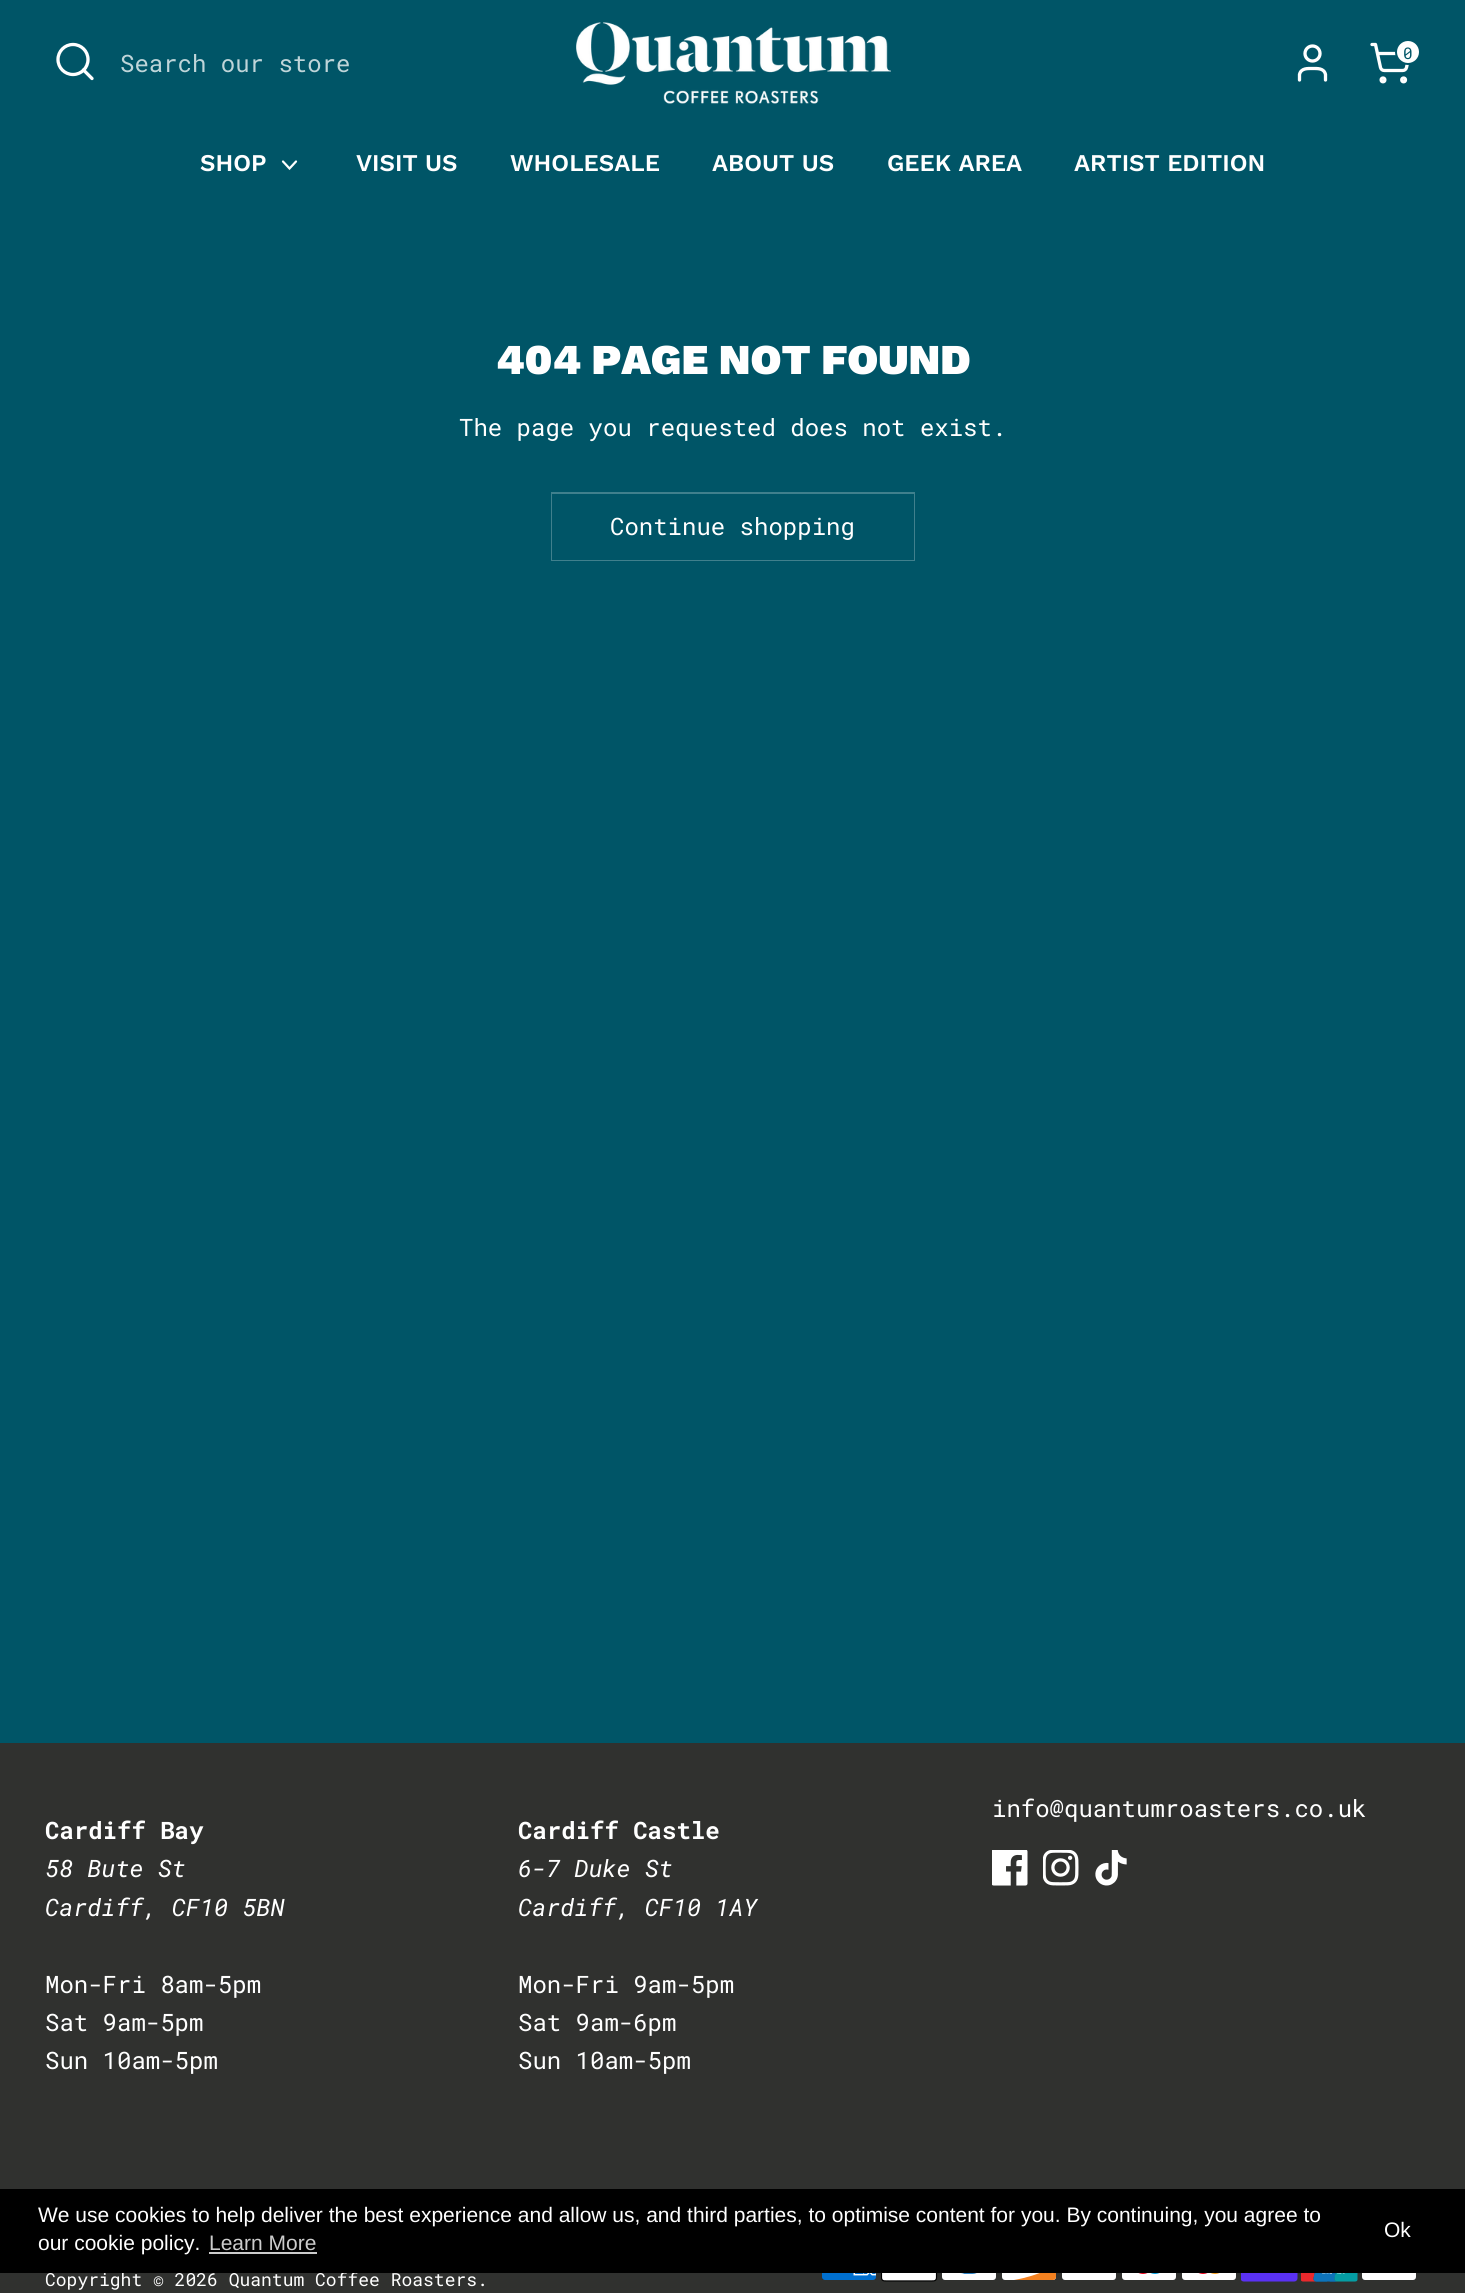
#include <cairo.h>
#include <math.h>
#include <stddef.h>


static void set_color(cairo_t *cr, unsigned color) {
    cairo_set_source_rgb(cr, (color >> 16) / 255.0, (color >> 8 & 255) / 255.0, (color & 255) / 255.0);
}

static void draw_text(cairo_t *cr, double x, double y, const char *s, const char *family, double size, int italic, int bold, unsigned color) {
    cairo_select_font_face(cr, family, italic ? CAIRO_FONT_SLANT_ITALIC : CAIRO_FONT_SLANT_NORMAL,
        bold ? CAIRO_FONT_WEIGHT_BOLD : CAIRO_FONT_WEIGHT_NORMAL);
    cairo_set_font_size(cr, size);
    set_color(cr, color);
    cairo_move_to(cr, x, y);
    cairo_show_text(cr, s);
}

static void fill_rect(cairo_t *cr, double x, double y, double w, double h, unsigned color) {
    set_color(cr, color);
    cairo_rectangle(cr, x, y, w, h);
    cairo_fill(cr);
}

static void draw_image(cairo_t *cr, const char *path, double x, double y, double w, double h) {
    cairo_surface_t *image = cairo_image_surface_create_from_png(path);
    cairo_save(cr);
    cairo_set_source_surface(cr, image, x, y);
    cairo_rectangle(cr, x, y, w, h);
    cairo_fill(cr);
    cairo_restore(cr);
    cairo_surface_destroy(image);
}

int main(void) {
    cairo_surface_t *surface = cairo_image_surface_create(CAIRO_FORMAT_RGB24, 1465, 2293);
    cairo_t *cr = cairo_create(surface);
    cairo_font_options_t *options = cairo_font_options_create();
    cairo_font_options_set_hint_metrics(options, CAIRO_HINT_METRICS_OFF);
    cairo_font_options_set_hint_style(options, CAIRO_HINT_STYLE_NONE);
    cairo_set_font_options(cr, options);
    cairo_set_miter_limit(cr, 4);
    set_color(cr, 0x005567);
    cairo_paint(cr);
    cairo_arc(cr, 73, 59.5, 15, 0, 2 * M_PI);
    set_color(cr, 0xFFFFFF);
    cairo_set_line_width(cr, 3.3);
    cairo_stroke(cr);
    cairo_new_path(cr);
    cairo_move_to(cr, 92, 78.5);
    cairo_line_to(cr, 83.5, 70);
    cairo_set_line_cap(cr, CAIRO_LINE_CAP_ROUND);
    cairo_set_line_join(cr, CAIRO_LINE_JOIN_ROUND);
    cairo_stroke(cr);
    draw_text(cr, 120, 72, "Search our store", "Roboto Mono", 24, 0, 0, 0xBFD5D9);
    draw_image(cr, "assets/img1.png", 576, 22, 315, 82);
    cairo_new_path(cr);
    cairo_move_to(cr, 1325.5, 80);
    cairo_line_to(cr, 1325.5, 74.5);
    cairo_curve_to(cr, 1324, 68, 1317.5, 68.5, 1312.5, 68.5);
    cairo_curve_to(cr, 1307.5, 68.5, 1301, 68, 1299.5, 74.5);
    cairo_line_to(cr, 1299.5, 80);
    set_color(cr, 0xFFFFFF);
    cairo_stroke(cr);
    cairo_arc(cr, 1312.5, 53.5, 7.5, 0, 2 * M_PI);
    cairo_set_line_cap(cr, CAIRO_LINE_CAP_BUTT);
    cairo_set_line_join(cr, CAIRO_LINE_JOIN_MITER);
    cairo_stroke(cr);
    cairo_arc(cr, 1383, 79.9, 1.9, 0, 2 * M_PI);
    cairo_stroke(cr);
    cairo_arc(cr, 1403.6, 79.9, 1.9, 0, 2 * M_PI);
    cairo_stroke(cr);
    cairo_new_path(cr);
    cairo_move_to(cr, 1372, 44.5);
    cairo_line_to(cr, 1375.5, 44.5);
    cairo_line_to(cr, 1380.5, 67.5);
    cairo_curve_to(cr, 1381, 69.5, 1382.5, 70.5, 1384.5, 70.5);
    cairo_line_to(cr, 1402.5, 70.5);
    cairo_curve_to(cr, 1404.5, 70.5, 1406, 69.5, 1406.5, 67.5);
    cairo_line_to(cr, 1409.5, 53.5);
    cairo_line_to(cr, 1377.5, 53.5);
    cairo_set_line_cap(cr, CAIRO_LINE_CAP_ROUND);
    cairo_set_line_join(cr, CAIRO_LINE_JOIN_ROUND);
    cairo_stroke(cr);
    cairo_arc(cr, 1408, 52, 12, 0, 2 * M_PI);
    cairo_fill_preserve(cr);
    set_color(cr, 0x005567);
    cairo_set_line_width(cr, 2);
    cairo_set_line_cap(cr, CAIRO_LINE_CAP_BUTT);
    cairo_set_line_join(cr, CAIRO_LINE_JOIN_MITER);
    cairo_stroke(cr);
    draw_text(cr, 1403, 59, "0", "Roboto Mono", 16, 0, 0, 0x005567);
    draw_text(cr, 200, 171, "SHOP", "Work Sans SemiBold", 24, 0, 0, 0xFFFFFF);
    cairo_new_path(cr);
    cairo_move_to(cr, 283, 161.5);
    cairo_line_to(cr, 289.5, 168.5);
    cairo_line_to(cr, 296, 161.5);
    cairo_set_line_width(cr, 2.2);
    cairo_set_line_cap(cr, CAIRO_LINE_CAP_ROUND);
    cairo_stroke(cr);
    draw_text(cr, 356, 171, "VISIT US", "Work Sans SemiBold", 24, 0, 0, 0xFFFFFF);
    draw_text(cr, 510, 171, "WHOLESALE", "Work Sans SemiBold", 24, 0, 0, 0xFFFFFF);
    draw_text(cr, 712, 171, "ABOUT US", "Work Sans SemiBold", 24, 0, 0, 0xFFFFFF);
    draw_text(cr, 887, 171, "GEEK AREA", "Work Sans SemiBold", 24, 0, 0, 0xFFFFFF);
    draw_text(cr, 1074, 171, "ARTIST EDITION", "Work Sans SemiBold", 24, 0, 0, 0xFFFFFF);
    draw_text(cr, 496, 374, "404 PAGE NOT FOUND", "Work Sans Black", 42.5, 0, 0, 0xFFFFFF);
    draw_text(cr, 459, 436, "The page you requested does not exist.", "Roboto Mono", 24, 0, 0, 0xFFFFFF);
    cairo_rectangle(cr, 552, 493, 362, 67);
    set_color(cr, 0x40808D);
    cairo_set_line_width(cr, 2);
    cairo_set_line_cap(cr, CAIRO_LINE_CAP_BUTT);
    cairo_stroke(cr);
    fill_rect(cr, 552, 494, 362, 66, 0x005567);
    draw_text(cr, 610, 535, "Continue shopping", "Roboto Mono", 24, 0, 0, 0xFFFFFF);
    fill_rect(cr, 0, 1743, 1465, 550, 0x30312F);
    draw_text(cr, 992, 1817, "info@quantumroasters.co.uk", "Roboto Mono", 24, 0, 0, 0xFFFFFF);
    draw_image(cr, "assets/img2.png", 992, 1850, 36, 36);
    draw_image(cr, "assets/img3.png", 1043, 1850, 36, 36);
    draw_image(cr, "assets/img4.png", 1095, 1850, 32, 36);
    draw_text(cr, 45, 1839, "Cardiff Bay", "Roboto Mono", 24, 0, 1, 0xFFFFFF);
    draw_text(cr, 45, 1877, "58 Bute St", "Roboto Mono", 24, 1, 0, 0xFFFFFF);
    draw_text(cr, 45, 1916, "Cardiff, CF10 5BN", "Roboto Mono", 24, 1, 0, 0xFFFFFF);
    draw_text(cr, 45, 1993, "Mon-Fri 8am-5pm", "Roboto Mono", 24, 0, 0, 0xFFFFFF);
    draw_text(cr, 45, 2031, "Sat 9am-5pm", "Roboto Mono", 24, 0, 0, 0xFFFFFF);
    draw_text(cr, 45, 2069, "Sun 10am-5pm", "Roboto Mono", 24, 0, 0, 0xFFFFFF);
    draw_text(cr, 518, 1839, "Cardiff Castle", "Roboto Mono", 24, 0, 1, 0xFFFFFF);
    draw_text(cr, 518, 1877, "6-7 Duke St", "Roboto Mono", 24, 1, 0, 0xFFFFFF);
    draw_text(cr, 518, 1916, "Cardiff, CF10 1AY", "Roboto Mono", 24, 1, 0, 0xFFFFFF);
    draw_text(cr, 518, 1993, "Mon-Fri 9am-5pm", "Roboto Mono", 24, 0, 0, 0xFFFFFF);
    draw_text(cr, 518, 2031, "Sat 9am-6pm", "Roboto Mono", 24, 0, 0, 0xFFFFFF);
    draw_text(cr, 518, 2069, "Sun 10am-5pm", "Roboto Mono", 24, 0, 0, 0xFFFFFF);
    draw_text(cr, 45, 2286, "Copyright © 2026 Quantum Coffee Roasters.", "Roboto Mono", 18, 0, 0, 0xFFFFFF);
    draw_image(cr, "assets/img5.png", 822, 2273, 54, 7);
    draw_image(cr, "assets/img6.png", 881, 2273, 57, 9);
    draw_image(cr, "assets/img7.png", 942, 2273, 54, 7);
    draw_image(cr, "assets/img8.png", 1002, 2273, 54, 7);
    draw_image(cr, "assets/img9.png", 1062, 2273, 54, 7);
    draw_image(cr, "assets/img10.png", 1122, 2273, 54, 7);
    draw_image(cr, "assets/img11.png", 1182, 2273, 54, 7);
    draw_image(cr, "assets/img12.png", 1241, 2273, 57, 9);
    draw_image(cr, "assets/img13.png", 1301, 2273, 57, 9);
    draw_image(cr, "assets/img9.png", 1362, 2273, 54, 7);
    fill_rect(cr, 0, 2189, 1465, 84, 0x000000);
    draw_text(cr, 38, 2222, "We use cookies to help deliver the best experience and allow us, and third parties, to optimise content for you. By continuing, you agree to", "Liberation Sans", 21, 0, 0, 0xFFFFFF);
    draw_text(cr, 38, 2250, "our cookie policy.", "Liberation Sans", 21, 0, 0, 0xFFFFFF);
    draw_text(cr, 209, 2250, "Learn More", "Liberation Sans", 21, 0, 0, 0xCCCCCC);
    fill_rect(cr, 209, 2252, 108, 2, 0xCCCCCC);
    draw_text(cr, 1384, 2237, "Ok", "Liberation Sans", 21, 0, 0, 0xFFFFFF);
    cairo_surface_write_to_png(surface, "output.png");
    cairo_font_options_destroy(options);
    cairo_destroy(cr);
    cairo_surface_destroy(surface);
    return 0;
}
